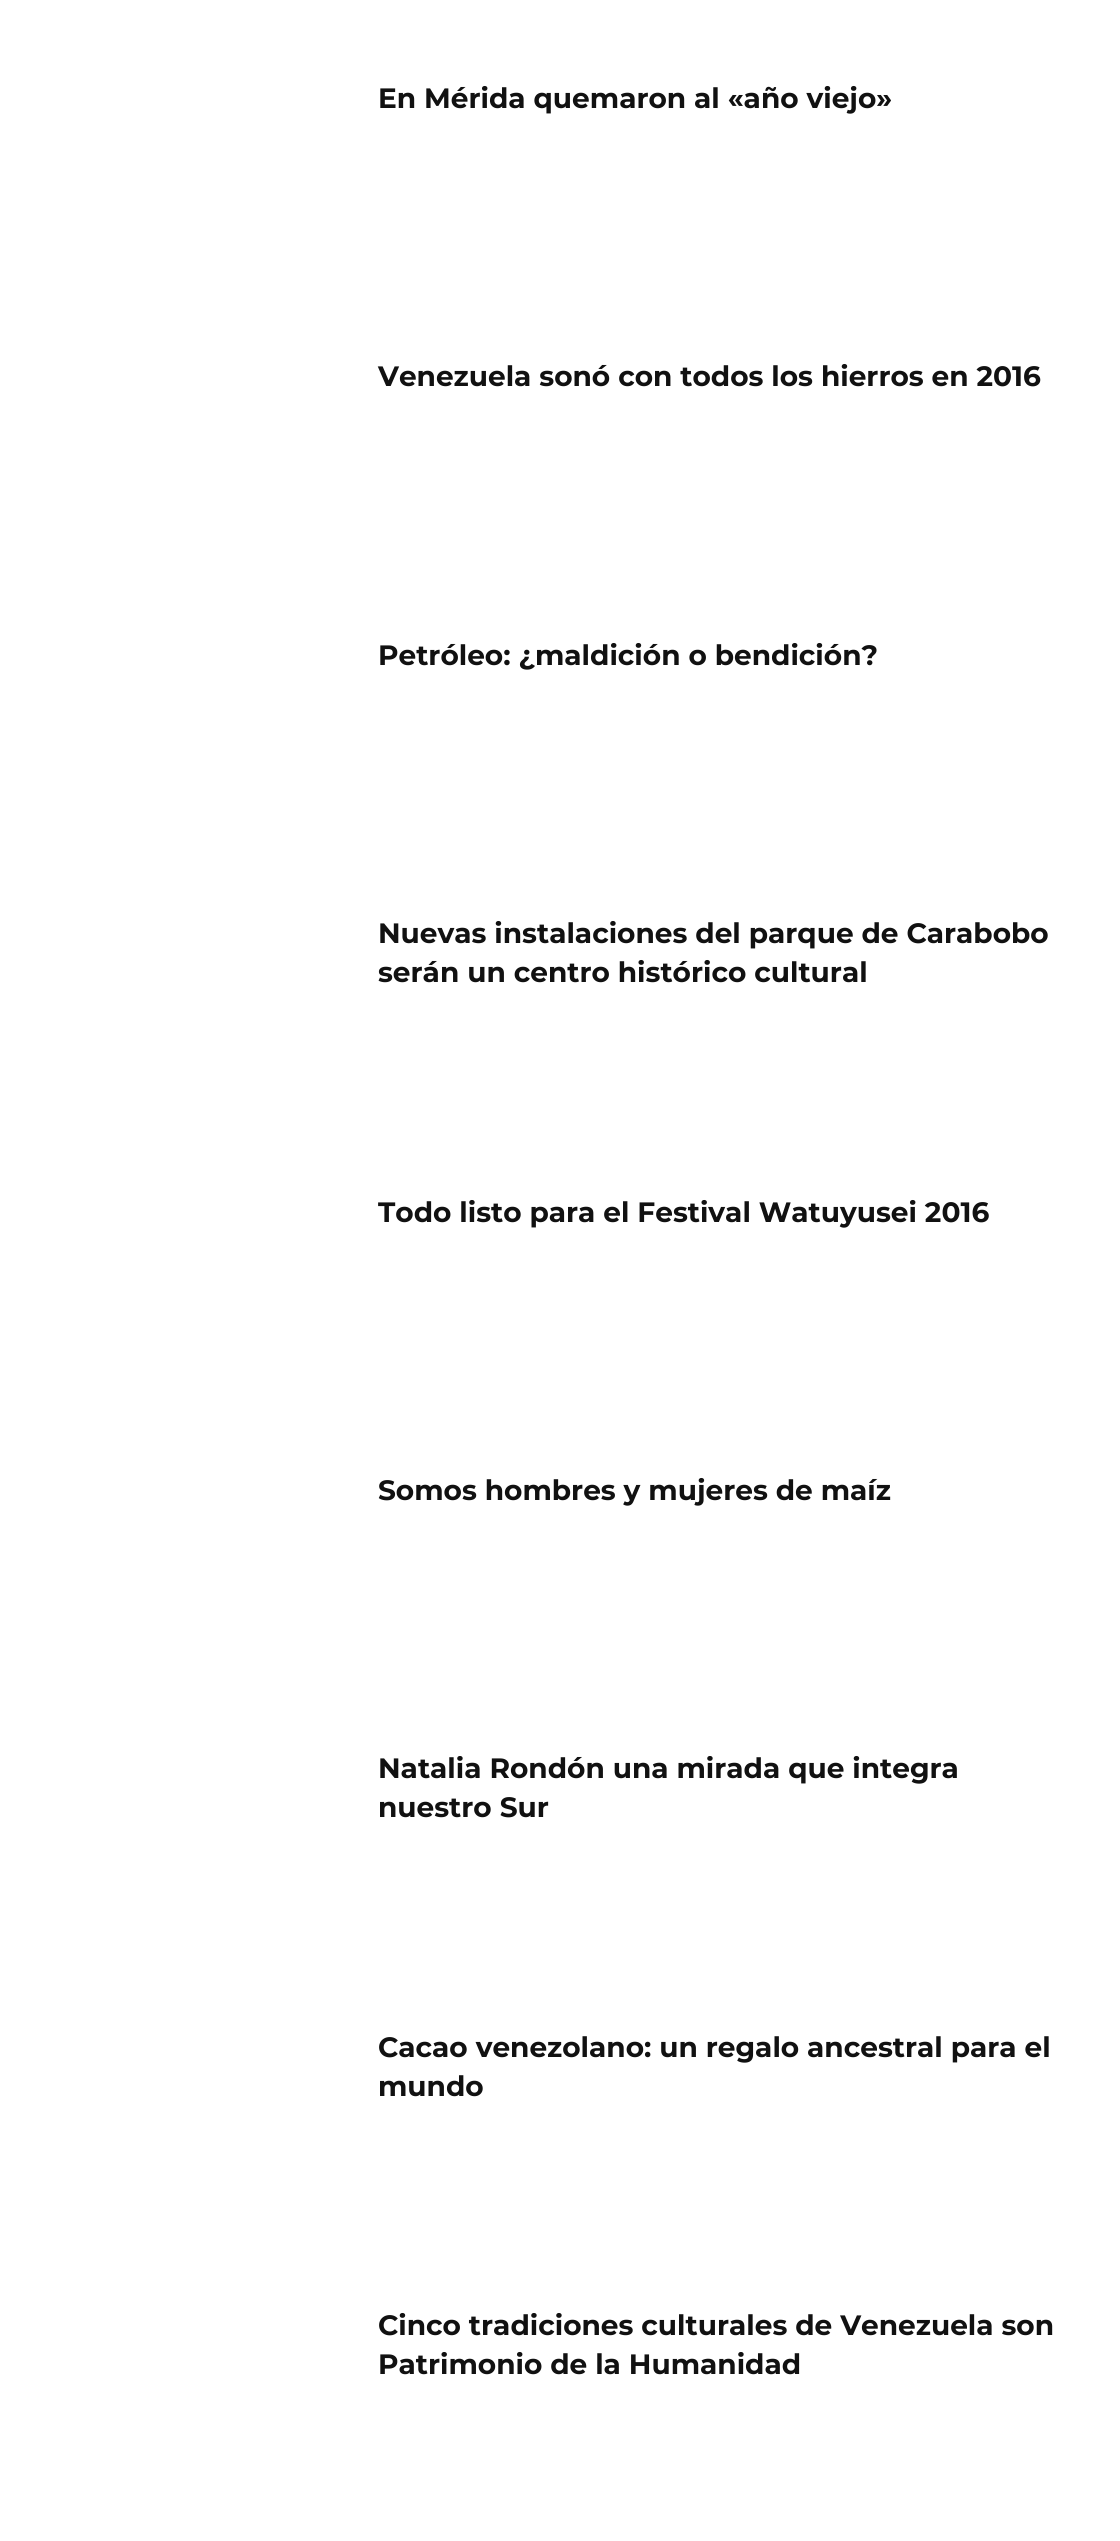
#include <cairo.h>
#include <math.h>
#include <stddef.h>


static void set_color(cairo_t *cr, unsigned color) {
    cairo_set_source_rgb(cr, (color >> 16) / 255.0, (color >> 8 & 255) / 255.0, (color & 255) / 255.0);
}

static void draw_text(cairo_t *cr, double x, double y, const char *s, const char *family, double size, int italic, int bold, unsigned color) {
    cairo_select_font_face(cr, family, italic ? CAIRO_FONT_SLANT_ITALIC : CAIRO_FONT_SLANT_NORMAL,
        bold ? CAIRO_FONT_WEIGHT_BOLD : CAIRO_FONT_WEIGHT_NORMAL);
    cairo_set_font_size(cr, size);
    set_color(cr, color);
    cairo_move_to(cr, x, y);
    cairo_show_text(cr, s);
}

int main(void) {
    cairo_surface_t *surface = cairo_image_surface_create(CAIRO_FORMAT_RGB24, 1120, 2541);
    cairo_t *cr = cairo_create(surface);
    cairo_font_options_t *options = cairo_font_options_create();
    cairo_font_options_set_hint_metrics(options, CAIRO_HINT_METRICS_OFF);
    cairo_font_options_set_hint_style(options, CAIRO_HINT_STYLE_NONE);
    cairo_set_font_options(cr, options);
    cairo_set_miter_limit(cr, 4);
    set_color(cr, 0xFFFFFF);
    cairo_paint(cr);
    draw_text(cr, 378, 108, "En Mérida quemaron al «año viejo»", "Montserrat", 28, 0, 1, 0x111111);
    draw_text(cr, 378, 386, "Venezuela sonó con todos los hierros en 2016", "Montserrat", 28, 0, 1, 0x111111);
    draw_text(cr, 378, 665, "Petróleo: ¿maldición o bendición?", "Montserrat", 28, 0, 1, 0x111111);
    draw_text(cr, 378, 943, "Nuevas instalaciones del parque de Carabobo", "Montserrat", 28, 0, 1, 0x111111);
    draw_text(cr, 378, 982, "serán un centro histórico cultural", "Montserrat", 28, 0, 1, 0x111111);
    draw_text(cr, 378, 1222, "Todo listo para el Festival Watuyusei 2016", "Montserrat", 28, 0, 1, 0x111111);
    draw_text(cr, 378, 1500, "Somos hombres y mujeres de maíz", "Montserrat", 28, 0, 1, 0x111111);
    draw_text(cr, 378, 1778, "Natalia Rondón una mirada que integra", "Montserrat", 28, 0, 1, 0x111111);
    draw_text(cr, 378, 1817, "nuestro Sur", "Montserrat", 28, 0, 1, 0x111111);
    draw_text(cr, 378, 2057, "Cacao venezolano: un regalo ancestral para el", "Montserrat", 28, 0, 1, 0x111111);
    draw_text(cr, 378, 2096, "mundo", "Montserrat", 28, 0, 1, 0x111111);
    draw_text(cr, 378, 2335, "Cinco tradiciones culturales de Venezuela son", "Montserrat", 28, 0, 1, 0x111111);
    draw_text(cr, 378, 2374, "Patrimonio de la Humanidad", "Montserrat", 28, 0, 1, 0x111111);
    cairo_surface_write_to_png(surface, "output.png");
    cairo_font_options_destroy(options);
    cairo_destroy(cr);
    cairo_surface_destroy(surface);
    return 0;
}
